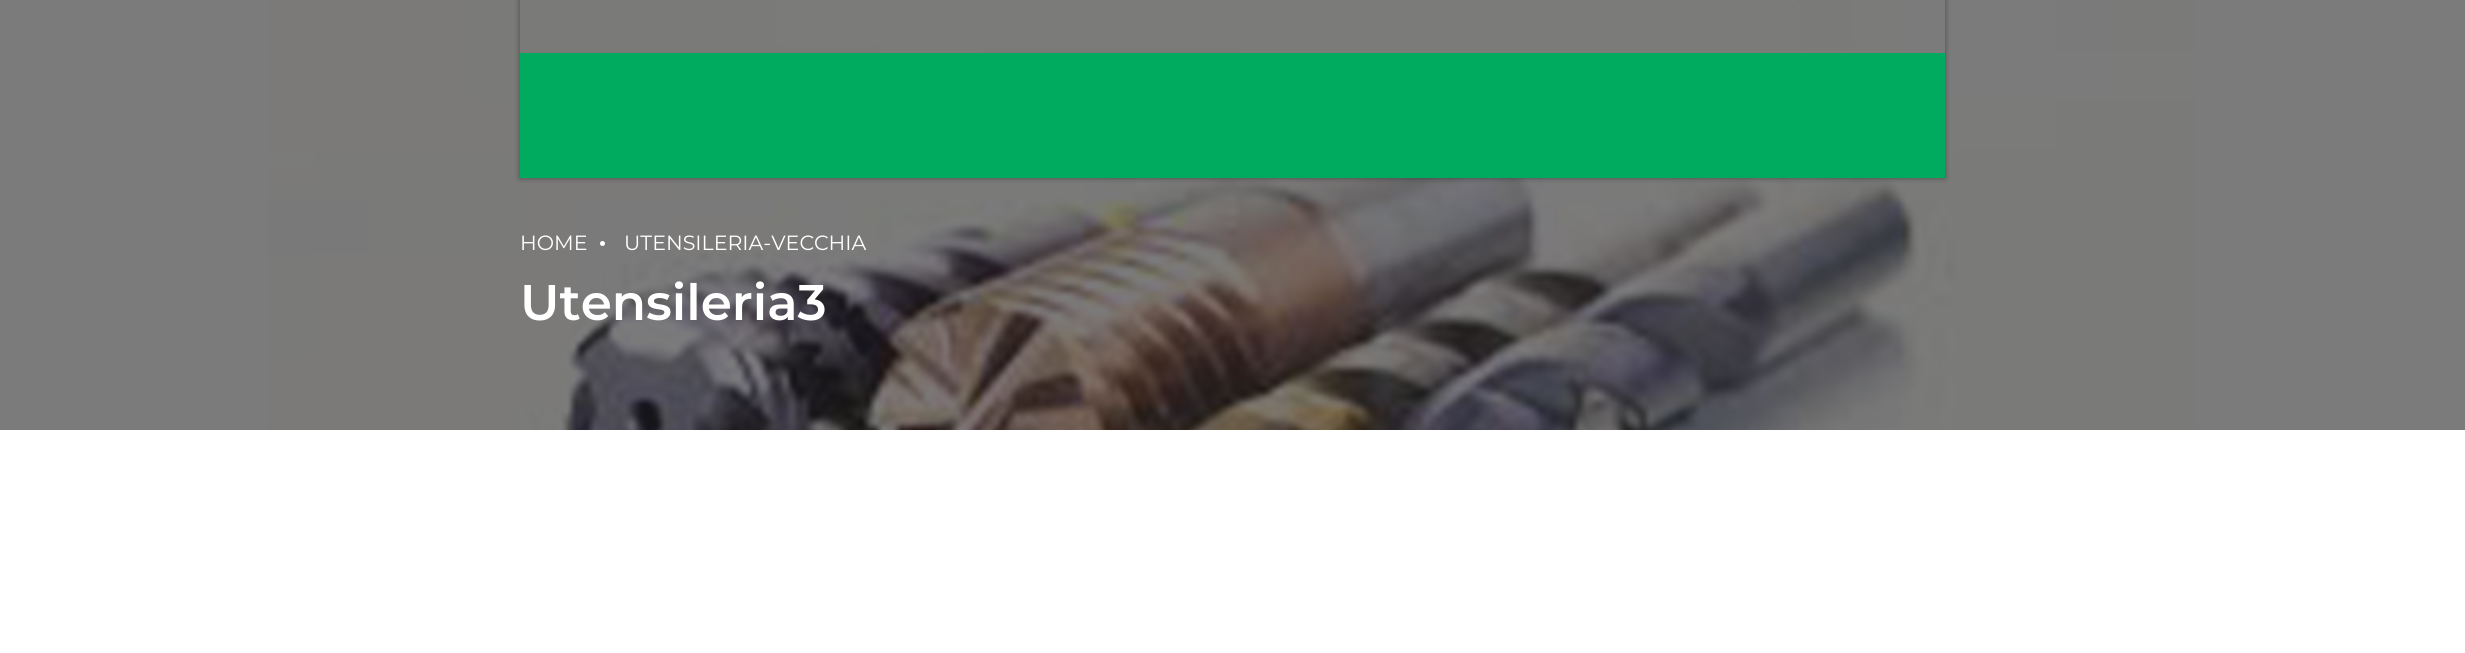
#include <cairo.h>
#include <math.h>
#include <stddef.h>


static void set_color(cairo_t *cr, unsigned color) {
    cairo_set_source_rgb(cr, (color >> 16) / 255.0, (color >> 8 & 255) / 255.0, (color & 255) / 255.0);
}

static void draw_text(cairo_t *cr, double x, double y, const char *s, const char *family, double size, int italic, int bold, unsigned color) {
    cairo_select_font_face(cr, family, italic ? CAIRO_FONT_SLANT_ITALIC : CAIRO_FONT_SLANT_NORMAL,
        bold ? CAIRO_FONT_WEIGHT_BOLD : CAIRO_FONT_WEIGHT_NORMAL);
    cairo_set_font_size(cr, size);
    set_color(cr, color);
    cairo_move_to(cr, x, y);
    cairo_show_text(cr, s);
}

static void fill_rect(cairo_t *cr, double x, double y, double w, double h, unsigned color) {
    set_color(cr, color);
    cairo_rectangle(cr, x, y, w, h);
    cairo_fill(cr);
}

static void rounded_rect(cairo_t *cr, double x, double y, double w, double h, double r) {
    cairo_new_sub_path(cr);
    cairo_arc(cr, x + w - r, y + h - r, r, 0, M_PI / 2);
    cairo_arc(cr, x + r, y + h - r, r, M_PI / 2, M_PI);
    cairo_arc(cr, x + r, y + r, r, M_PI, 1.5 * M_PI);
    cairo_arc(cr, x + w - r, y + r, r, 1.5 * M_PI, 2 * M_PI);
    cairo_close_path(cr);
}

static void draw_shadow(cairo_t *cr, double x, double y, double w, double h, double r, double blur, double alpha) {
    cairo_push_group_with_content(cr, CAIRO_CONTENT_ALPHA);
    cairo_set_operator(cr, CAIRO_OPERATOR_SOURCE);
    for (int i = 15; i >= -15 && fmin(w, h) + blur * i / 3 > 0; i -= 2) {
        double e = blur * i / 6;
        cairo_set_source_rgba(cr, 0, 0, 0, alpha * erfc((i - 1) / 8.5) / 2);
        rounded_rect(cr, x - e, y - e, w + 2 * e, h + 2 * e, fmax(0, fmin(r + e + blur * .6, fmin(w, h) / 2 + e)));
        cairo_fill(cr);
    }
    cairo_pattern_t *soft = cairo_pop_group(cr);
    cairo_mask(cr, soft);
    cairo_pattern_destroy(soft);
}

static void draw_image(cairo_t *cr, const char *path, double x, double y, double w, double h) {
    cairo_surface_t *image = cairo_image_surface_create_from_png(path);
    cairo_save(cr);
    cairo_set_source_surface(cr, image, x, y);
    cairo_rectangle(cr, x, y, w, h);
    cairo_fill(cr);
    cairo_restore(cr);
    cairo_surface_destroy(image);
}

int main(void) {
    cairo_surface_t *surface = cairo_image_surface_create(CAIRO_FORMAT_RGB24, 2465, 653);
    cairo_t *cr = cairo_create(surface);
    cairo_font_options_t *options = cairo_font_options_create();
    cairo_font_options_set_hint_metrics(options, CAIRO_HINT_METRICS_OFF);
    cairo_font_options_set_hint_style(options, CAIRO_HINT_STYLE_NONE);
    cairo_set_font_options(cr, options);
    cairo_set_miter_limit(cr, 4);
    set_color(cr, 0xFFFFFF);
    cairo_paint(cr);
    draw_image(cr, "assets/img1.png", 0, 0, 2465, 430);
    cairo_save(cr);
    cairo_set_fill_rule(cr, CAIRO_FILL_RULE_EVEN_ODD);
    cairo_new_path(cr);
    cairo_move_to(cr, 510, 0);
    cairo_line_to(cr, 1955, 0);
    cairo_line_to(cr, 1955, 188);
    cairo_line_to(cr, 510, 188);
    cairo_close_path(cr);
    cairo_move_to(cr, 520, 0);
    cairo_line_to(cr, 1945, 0);
    cairo_line_to(cr, 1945, 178);
    cairo_line_to(cr, 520, 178);
    cairo_close_path(cr);
    cairo_clip(cr);
    set_color(cr, 0x000000);
    draw_shadow(cr, 520, 0, 1425, 178, 0, 3, 0.4);
    cairo_restore(cr);
    fill_rect(cr, 520, 53, 1425, 125, 0x00AB5F);
    draw_text(cr, 520, 250, "HOME", "Montserrat", 20.6, 0, 0, 0xFFFFFF);
    cairo_new_path(cr);
    cairo_arc(cr, 602.5, 243.5, 2.5, 0, 2 * M_PI);
    cairo_fill(cr);
    draw_text(cr, 624, 250, "UTENSILERIA-VECCHIA", "Montserrat", 20.6, 0, 0, 0xFFFFFF);
    draw_text(cr, 520, 320, "Utensileria3", "Montserrat SemiBold", 50, 0, 0, 0xFFFFFF);
    cairo_surface_write_to_png(surface, "output.png");
    cairo_font_options_destroy(options);
    cairo_destroy(cr);
    cairo_surface_destroy(surface);
    return 0;
}
